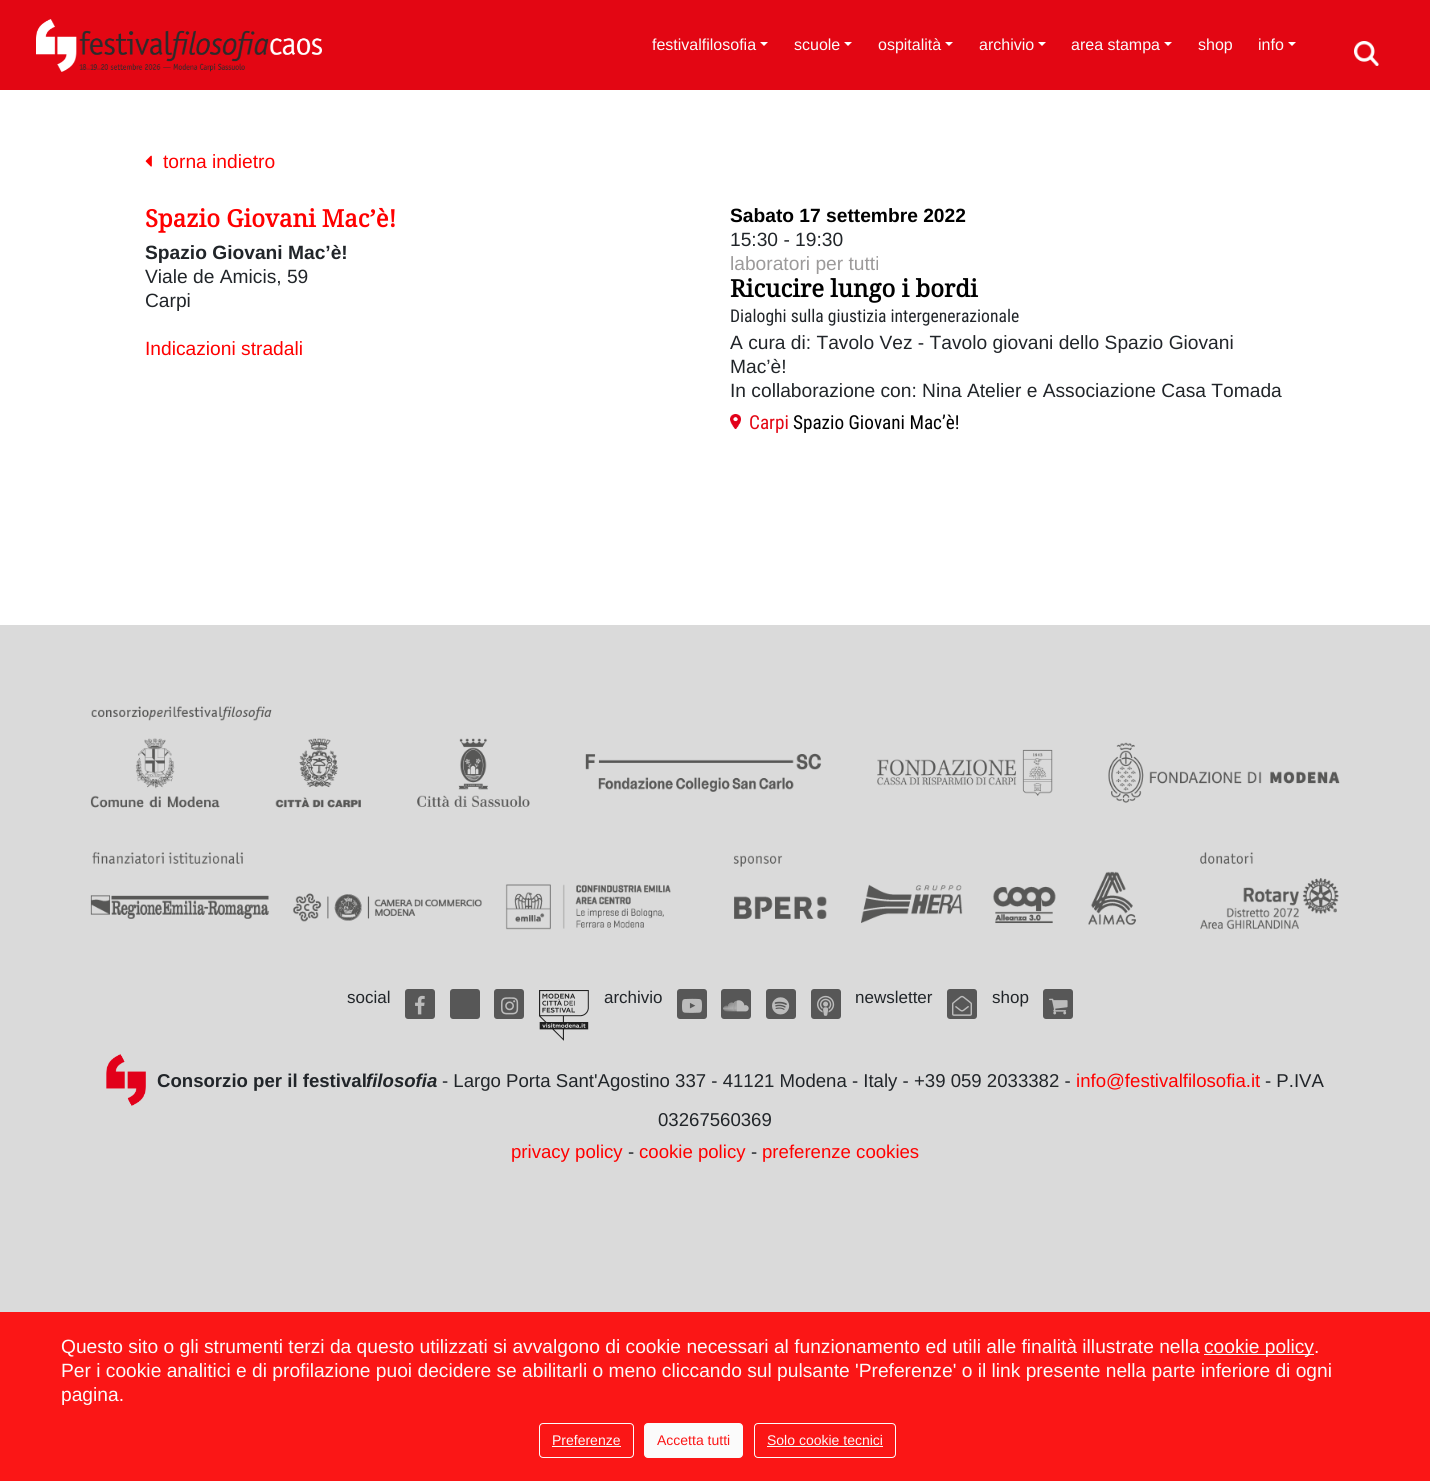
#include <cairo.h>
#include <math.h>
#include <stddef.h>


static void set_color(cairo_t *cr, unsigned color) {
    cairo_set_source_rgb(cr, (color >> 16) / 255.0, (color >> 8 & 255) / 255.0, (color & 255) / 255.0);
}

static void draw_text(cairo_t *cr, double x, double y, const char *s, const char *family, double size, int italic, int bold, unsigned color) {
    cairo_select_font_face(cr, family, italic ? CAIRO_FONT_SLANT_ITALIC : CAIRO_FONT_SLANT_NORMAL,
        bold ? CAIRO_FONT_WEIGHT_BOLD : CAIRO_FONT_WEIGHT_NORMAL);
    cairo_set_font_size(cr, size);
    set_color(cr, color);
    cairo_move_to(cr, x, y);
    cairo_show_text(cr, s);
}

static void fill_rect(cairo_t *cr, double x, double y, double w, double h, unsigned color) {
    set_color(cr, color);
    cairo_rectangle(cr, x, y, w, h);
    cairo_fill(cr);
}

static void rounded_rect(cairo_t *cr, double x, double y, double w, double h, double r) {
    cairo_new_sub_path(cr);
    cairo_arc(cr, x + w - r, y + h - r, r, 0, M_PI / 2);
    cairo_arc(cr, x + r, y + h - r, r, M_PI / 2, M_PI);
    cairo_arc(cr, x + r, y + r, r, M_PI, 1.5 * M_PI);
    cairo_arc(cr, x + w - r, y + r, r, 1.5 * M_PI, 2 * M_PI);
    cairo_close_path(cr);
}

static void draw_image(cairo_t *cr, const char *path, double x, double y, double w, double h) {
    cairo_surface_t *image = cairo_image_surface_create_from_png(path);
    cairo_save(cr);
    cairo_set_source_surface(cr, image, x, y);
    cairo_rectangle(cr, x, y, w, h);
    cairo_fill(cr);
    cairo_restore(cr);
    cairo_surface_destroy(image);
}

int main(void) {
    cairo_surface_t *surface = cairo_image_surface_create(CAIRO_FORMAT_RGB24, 1430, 1481);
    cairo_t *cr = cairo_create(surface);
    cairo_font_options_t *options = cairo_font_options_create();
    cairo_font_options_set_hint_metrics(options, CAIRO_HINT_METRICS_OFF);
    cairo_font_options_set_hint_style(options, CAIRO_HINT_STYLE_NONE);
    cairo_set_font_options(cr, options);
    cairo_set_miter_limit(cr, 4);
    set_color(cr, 0xDADADA);
    cairo_paint(cr);
    fill_rect(cr, 0, 0, 1430, 90, 0xE30613);
    draw_image(cr, "assets/img1.png", 36, 19, 286, 53);
    draw_text(cr, 652, 50, "festivalfilosofia", "Liberation Sans", 16, 0, 0, 0xFBFBFB);
    set_color(cr, 0xFFFFFF);
    cairo_new_path(cr);
    cairo_move_to(cr, 760, 42);
    cairo_line_to(cr, 768, 42);
    cairo_line_to(cr, 764, 46);
    cairo_close_path(cr);
    cairo_fill(cr);
    draw_text(cr, 794, 50, "scuole", "Liberation Sans", 16, 0, 0, 0xFBFBFB);
    set_color(cr, 0xFFFFFF);
    cairo_new_path(cr);
    cairo_move_to(cr, 844, 42);
    cairo_line_to(cr, 852, 42);
    cairo_line_to(cr, 848, 46);
    cairo_close_path(cr);
    cairo_fill(cr);
    draw_text(cr, 878, 50, "ospitalità", "Liberation Sans", 16, 0, 0, 0xFBFBFB);
    set_color(cr, 0xFFFFFF);
    cairo_new_path(cr);
    cairo_move_to(cr, 945, 42);
    cairo_line_to(cr, 953, 42);
    cairo_line_to(cr, 949, 46);
    cairo_close_path(cr);
    cairo_fill(cr);
    draw_text(cr, 979, 50, "archivio", "Liberation Sans", 16, 0, 0, 0xFBFBFB);
    set_color(cr, 0xFFFFFF);
    cairo_new_path(cr);
    cairo_move_to(cr, 1038, 42);
    cairo_line_to(cr, 1046, 42);
    cairo_line_to(cr, 1042, 46);
    cairo_close_path(cr);
    cairo_fill(cr);
    draw_text(cr, 1071, 50, "area stampa", "Liberation Sans", 16, 0, 0, 0xFBFBFB);
    set_color(cr, 0xFFFFFF);
    cairo_new_path(cr);
    cairo_move_to(cr, 1164, 42);
    cairo_line_to(cr, 1172, 42);
    cairo_line_to(cr, 1168, 46);
    cairo_close_path(cr);
    cairo_fill(cr);
    draw_text(cr, 1198, 50, "shop", "Liberation Sans", 16, 0, 0, 0xFBFBFB);
    draw_text(cr, 1258, 50, "info", "Liberation Sans", 16, 0, 0, 0xFBFBFB);
    set_color(cr, 0xFFFFFF);
    cairo_new_path(cr);
    cairo_move_to(cr, 1288, 42);
    cairo_line_to(cr, 1296, 42);
    cairo_line_to(cr, 1292, 46);
    cairo_close_path(cr);
    cairo_fill(cr);
    draw_image(cr, "assets/img2.png", 1354, 41, 25, 25);
    fill_rect(cr, 0, 90, 1430, 535, 0xFFFFFF);
    draw_image(cr, "assets/img3.png", 145, 155, 7, 12);
    draw_text(cr, 163, 168, "torna indietro", "Liberation Sans", 19.2, 0, 0, 0xFF0000);
    draw_text(cr, 145, 227, "Spazio Giovani Mac’è!", "Noto Serif", 24, 0, 1, 0xFF0000);
    draw_text(cr, 145, 259, "Spazio Giovani Mac’è!", "Liberation Sans", 19.2, 0, 1, 0x212529);
    draw_text(cr, 145, 283, "Viale de Amicis, 59", "Liberation Sans", 19.2, 0, 0, 0x212529);
    draw_text(cr, 145, 307, "Carpi", "Liberation Sans", 19.2, 0, 0, 0x212529);
    draw_text(cr, 145, 355, "Indicazioni stradali", "Liberation Sans", 19.2, 0, 0, 0xFF0000);
    draw_text(cr, 730, 222, "Sabato 17 settembre 2022", "Liberation Sans", 19.2, 0, 1, 0x000000);
    draw_text(cr, 730, 246, "15:30 - 19:30", "Liberation Sans", 19.2, 0, 0, 0x212529);
    draw_text(cr, 730, 270, "laboratori per tutti", "Liberation Sans", 19.2, 0, 0, 0x9C9A9A);
    draw_text(cr, 730, 297, "Ricucire lungo i bordi", "Noto Serif", 24, 0, 1, 0x000000);
    draw_text(cr, 730, 322, "Dialoghi sulla giustizia intergenerazionale", "Roboto Condensed", 17.6, 0, 0, 0x212529);
    draw_text(cr, 730, 349, "A cura di: Tavolo Vez - Tavolo giovani dello Spazio Giovani", "Liberation Sans", 19.2, 0, 0, 0x212529);
    draw_text(cr, 730, 373, "Mac’è!", "Liberation Sans", 19.2, 0, 0, 0x212529);
    draw_text(cr, 730, 397, "In collaborazione con: Nina Atelier e Associazione Casa Tomada", "Liberation Sans", 19.2, 0, 0, 0x212529);
    draw_image(cr, "assets/img4.png", 730, 414, 11, 15);
    draw_text(cr, 749, 429, "Carpi", "Roboto Condensed", 19.2, 0, 0, 0xE30613);
    draw_text(cr, 793, 429, "Spazio Giovani Mac’è!", "Roboto Condensed", 19.2, 0, 0, 0x000000);
    draw_image(cr, "assets/img5.png", 90, 706, 1250, 102);
    draw_image(cr, "assets/img6.png", 90, 851, 1249, 79);
    draw_text(cr, 347, 1003, "social", "Liberation Sans", 17, 0, 0, 0x212529);
    set_color(cr, 0x575757);
    rounded_rect(cr, 405, 989, 30, 30, 3);
    cairo_fill(cr);
    draw_image(cr, "assets/img7.png", 415, 995, 10, 20);
    rounded_rect(cr, 450, 989, 30, 30, 3);
    cairo_fill(cr);
    rounded_rect(cr, 494, 989, 30, 30, 3);
    cairo_fill(cr);
    draw_image(cr, "assets/img8.png", 501, 997, 18, 18);
    draw_image(cr, "assets/img9.png", 539, 990, 50, 51);
    draw_text(cr, 604, 1003, "archivio", "Liberation Sans", 17, 0, 0, 0x212529);
    set_color(cr, 0x575757);
    rounded_rect(cr, 677, 989, 30, 30, 3);
    cairo_fill(cr);
    draw_image(cr, "assets/img10.png", 682, 998, 20, 15);
    rounded_rect(cr, 721, 989, 30, 30, 3);
    cairo_fill(cr);
    draw_image(cr, "assets/img11.png", 723, 1000, 26, 12);
    rounded_rect(cr, 766, 989, 30, 30, 3);
    cairo_fill(cr);
    draw_image(cr, "assets/img12.png", 772, 997, 18, 18);
    rounded_rect(cr, 811, 989, 30, 30, 3);
    cairo_fill(cr);
    draw_image(cr, "assets/img13.png", 817, 995, 18, 21);
    draw_text(cr, 855, 1003, "newsletter", "Liberation Sans", 17, 0, 0, 0x212529);
    set_color(cr, 0x575757);
    rounded_rect(cr, 947, 989, 30, 30, 3);
    cairo_fill(cr);
    draw_image(cr, "assets/img14.png", 952, 995, 20, 21);
    draw_text(cr, 992, 1003, "shop", "Liberation Sans", 17, 0, 0, 0x212529);
    set_color(cr, 0x575757);
    rounded_rect(cr, 1043, 989, 30, 30, 3);
    cairo_fill(cr);
    draw_image(cr, "assets/img15.png", 1049, 998, 19, 17);
    draw_image(cr, "assets/img16.png", 106, 1054, 40, 52);
    draw_text(cr, 157, 1087, "Consorzio per il festival", "Liberation Sans", 18.6, 0, 1, 0x212529);
    draw_text(cr, 366, 1087, "filosofia", "Liberation Sans", 18.6, 1, 1, 0x212529);
    draw_text(cr, 442, 1087, "- Largo Porta Sant'Agostino 337 - 41121 Modena - Italy - +39 059 2033382 -", "Liberation Sans", 18.6, 0, 0, 0x212529);
    draw_text(cr, 1076, 1087, "info@festivalfilosofia.it", "Liberation Sans", 18.6, 0, 0, 0xFF0000);
    draw_text(cr, 1265, 1087, "- P.IVA", "Liberation Sans", 18.6, 0, 0, 0x212529);
    draw_text(cr, 658, 1126, "03267560369", "Liberation Sans", 18.6, 0, 0, 0x212529);
    draw_text(cr, 511, 1158, "privacy policy", "Liberation Sans", 18.6, 0, 0, 0xFF0000);
    draw_text(cr, 628, 1158, "-", "Liberation Sans", 18.6, 0, 0, 0x212529);
    draw_text(cr, 639, 1158, "cookie policy", "Liberation Sans", 18.6, 0, 0, 0xFF0000);
    draw_text(cr, 751, 1158, "-", "Liberation Sans", 18.6, 0, 0, 0x212529);
    draw_text(cr, 762, 1158, "preferenze cookies", "Liberation Sans", 18.6, 0, 0, 0xFF0000);
    fill_rect(cr, 0, 1312, 1430, 169, 0xFB1616);
    draw_text(cr, 61, 1353, "Questo sito o gli strumenti terzi da questo utilizzati si avvalgono di cookie necessari al funzionamento ed utili alle finalità illustrate nella", "Liberation Sans", 19.2, 0, 0, 0xFBFBFB);
    fill_rect(cr, 1204, 1354, 110, 1, 0xFBFBFB);
    draw_text(cr, 1204, 1353, "cookie policy.", "Liberation Sans", 19.2, 0, 0, 0xFBFBFB);
    draw_text(cr, 61, 1377, "Per i cookie analitici e di profilazione puoi decidere se abilitarli o meno cliccando sul pulsante 'Preferenze' o il link presente nella parte inferiore di ogni", "Liberation Sans", 19.2, 0, 0, 0xFBFBFB);
    draw_text(cr, 61, 1401, "pagina.", "Liberation Sans", 19.2, 0, 0, 0xFBFBFB);
    rounded_rect(cr, 539.5, 1423.5, 94, 34, 3.5);
    cairo_set_line_width(cr, 1);
    cairo_stroke(cr);
    draw_text(cr, 552, 1445, "Preferenze", "Liberation Sans", 14, 0, 0, 0xFBFBFB);
    fill_rect(cr, 552, 1446, 69, 1, 0xFBFBFB);
    rounded_rect(cr, 644.5, 1423.5, 98, 34, 3.5);
    cairo_fill_preserve(cr);
    cairo_stroke(cr);
    draw_text(cr, 657, 1445, "Accetta tutti", "Liberation Sans", 14, 0, 0, 0xFB1616);
    rounded_rect(cr, 754.5, 1423.5, 141, 34, 3.5);
    set_color(cr, 0xFBFBFB);
    cairo_stroke(cr);
    draw_text(cr, 767, 1445, "Solo cookie tecnici", "Liberation Sans", 14, 0, 0, 0xFBFBFB);
    fill_rect(cr, 767, 1446, 116, 1, 0xFBFBFB);
    cairo_surface_write_to_png(surface, "output.png");
    cairo_font_options_destroy(options);
    cairo_destroy(cr);
    cairo_surface_destroy(surface);
    return 0;
}
